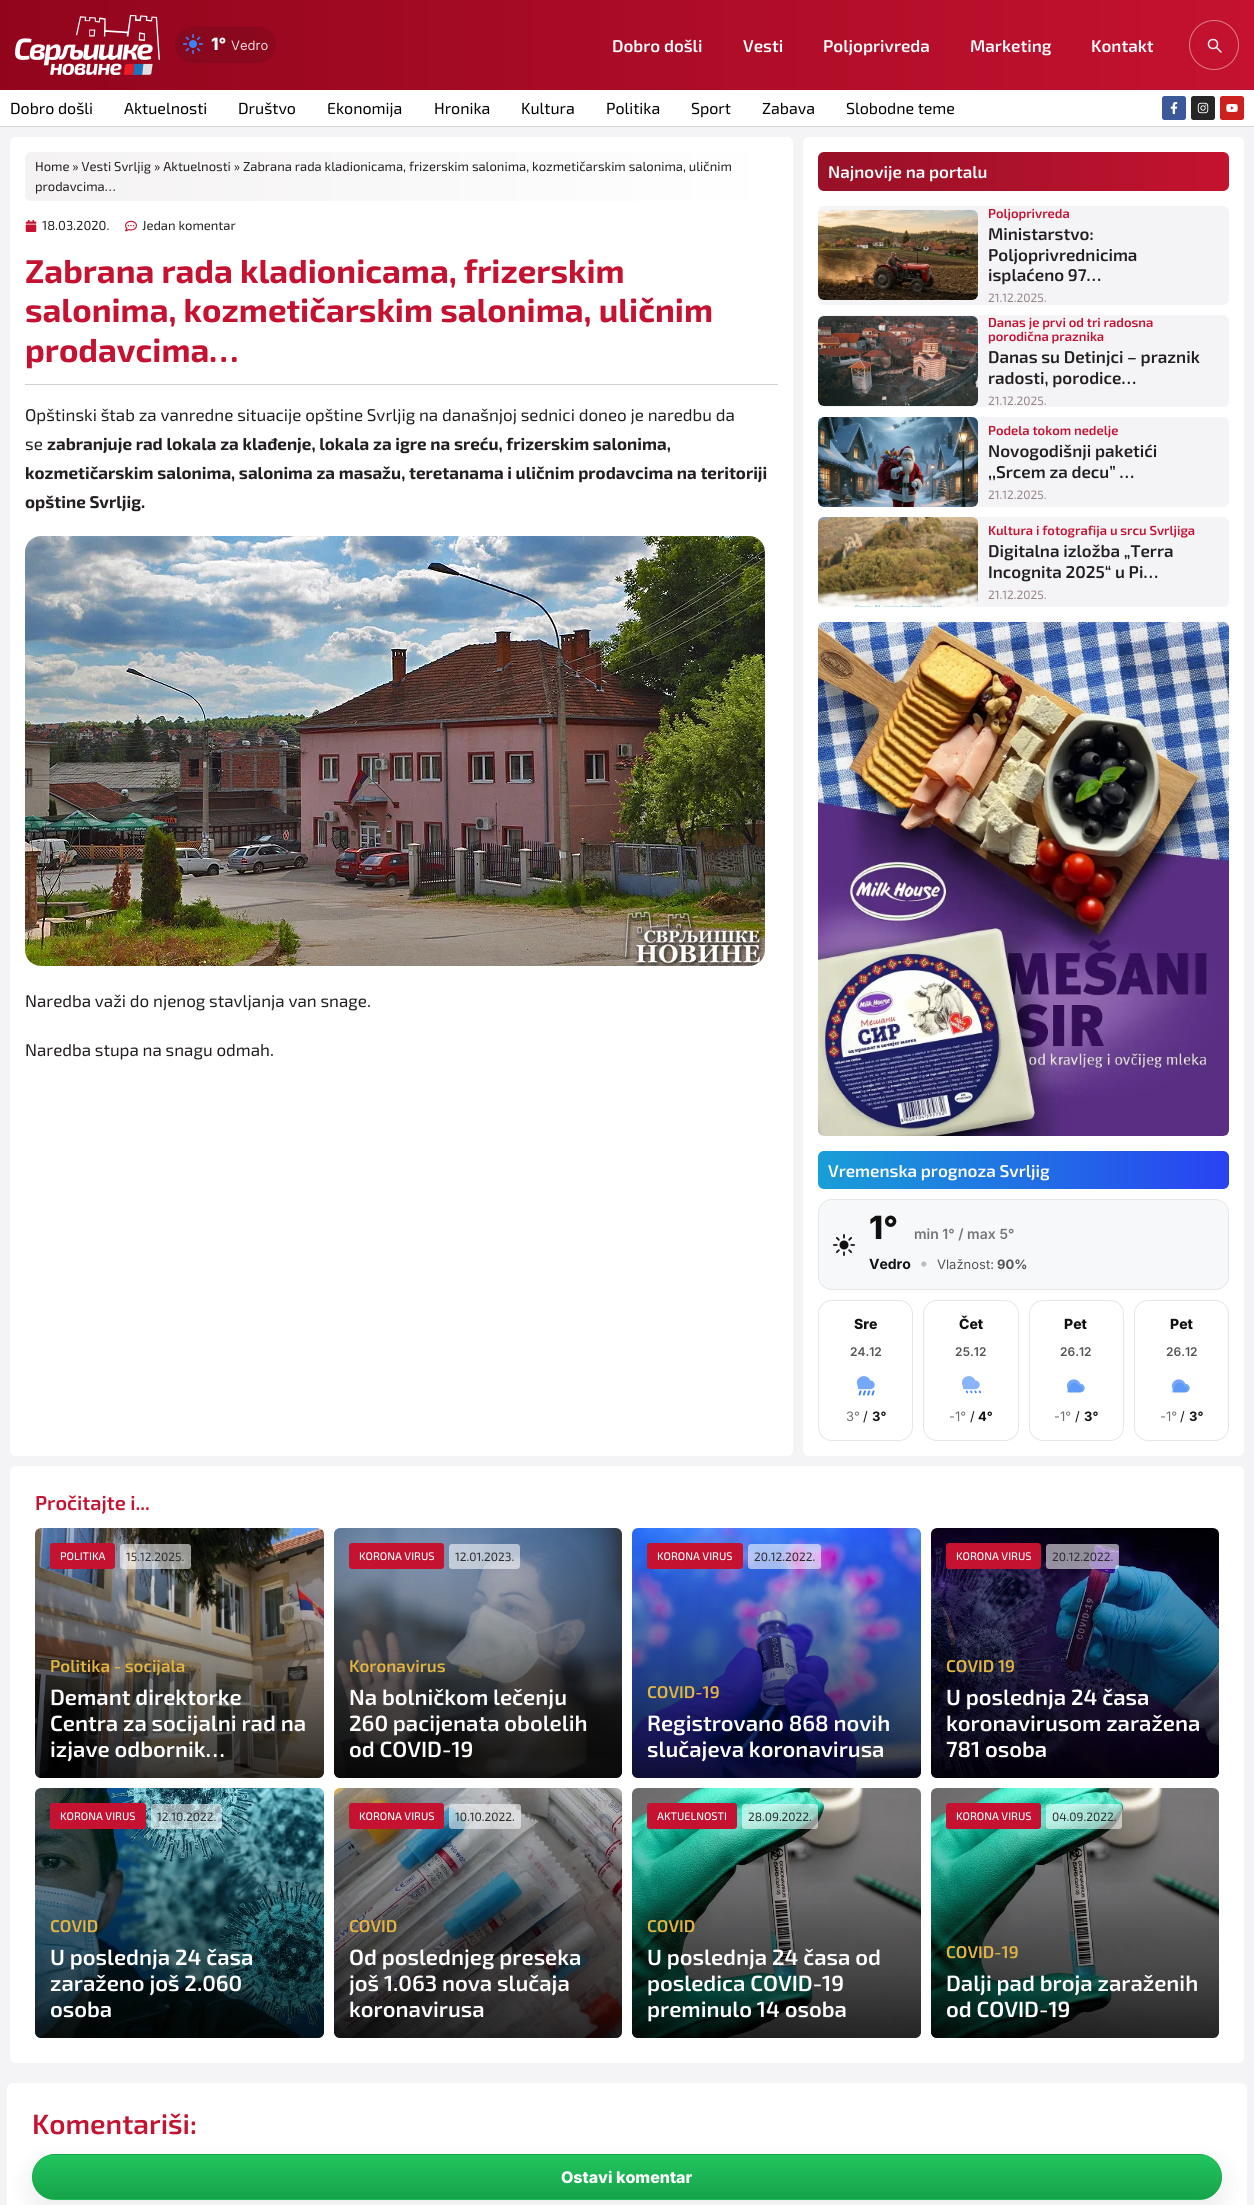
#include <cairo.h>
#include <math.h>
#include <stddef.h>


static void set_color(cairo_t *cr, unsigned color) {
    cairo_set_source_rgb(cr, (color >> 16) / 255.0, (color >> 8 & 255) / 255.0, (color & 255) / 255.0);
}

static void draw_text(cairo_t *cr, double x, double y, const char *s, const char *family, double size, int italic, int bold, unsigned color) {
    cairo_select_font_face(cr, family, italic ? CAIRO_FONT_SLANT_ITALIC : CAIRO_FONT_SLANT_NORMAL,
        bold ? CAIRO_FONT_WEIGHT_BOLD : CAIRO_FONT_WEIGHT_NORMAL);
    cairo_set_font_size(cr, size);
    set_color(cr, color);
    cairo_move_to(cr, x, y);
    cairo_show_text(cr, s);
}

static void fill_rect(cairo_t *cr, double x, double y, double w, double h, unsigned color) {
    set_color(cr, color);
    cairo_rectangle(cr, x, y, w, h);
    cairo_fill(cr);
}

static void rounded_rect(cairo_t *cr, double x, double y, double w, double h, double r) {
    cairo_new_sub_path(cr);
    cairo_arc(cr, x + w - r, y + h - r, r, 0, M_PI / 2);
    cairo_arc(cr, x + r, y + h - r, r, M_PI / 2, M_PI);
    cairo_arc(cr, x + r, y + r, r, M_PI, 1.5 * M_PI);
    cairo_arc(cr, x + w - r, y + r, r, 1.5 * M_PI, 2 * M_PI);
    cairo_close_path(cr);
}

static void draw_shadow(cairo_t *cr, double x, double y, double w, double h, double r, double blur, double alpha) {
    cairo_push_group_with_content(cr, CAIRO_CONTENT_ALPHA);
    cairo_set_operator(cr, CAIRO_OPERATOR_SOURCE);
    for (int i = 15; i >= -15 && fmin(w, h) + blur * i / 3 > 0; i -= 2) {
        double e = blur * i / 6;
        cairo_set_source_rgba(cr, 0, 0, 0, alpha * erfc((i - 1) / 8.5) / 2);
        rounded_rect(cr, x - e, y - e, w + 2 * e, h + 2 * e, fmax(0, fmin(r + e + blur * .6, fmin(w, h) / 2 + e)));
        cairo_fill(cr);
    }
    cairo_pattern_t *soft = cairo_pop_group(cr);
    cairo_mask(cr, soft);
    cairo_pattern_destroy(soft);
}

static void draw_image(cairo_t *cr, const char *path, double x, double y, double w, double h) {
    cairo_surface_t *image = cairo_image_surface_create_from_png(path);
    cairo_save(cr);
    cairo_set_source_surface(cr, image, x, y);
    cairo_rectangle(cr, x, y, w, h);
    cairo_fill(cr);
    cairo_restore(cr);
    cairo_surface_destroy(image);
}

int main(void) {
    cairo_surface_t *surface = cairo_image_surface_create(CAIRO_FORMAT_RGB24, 1254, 2205);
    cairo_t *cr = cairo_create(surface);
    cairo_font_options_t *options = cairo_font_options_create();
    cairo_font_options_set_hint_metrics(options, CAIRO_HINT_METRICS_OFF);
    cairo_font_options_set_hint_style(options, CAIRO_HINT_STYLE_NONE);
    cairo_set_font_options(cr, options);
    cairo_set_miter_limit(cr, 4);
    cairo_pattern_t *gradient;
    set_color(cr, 0xF4F4F7);
    cairo_paint(cr);
    gradient = cairo_pattern_create_linear(0, 45, 1254, 45);
    cairo_pattern_add_color_stop_rgba(gradient, 0, 0.569, 0.02, 0.11, 1);
    cairo_pattern_add_color_stop_rgba(gradient, 1, 0.769, 0.071, 0.188, 1);
    cairo_set_source(cr, gradient);
    cairo_pattern_destroy(gradient);
    cairo_rectangle(cr, 0, 0, 1254, 90);
    cairo_fill(cr);
    draw_image(cr, "assets/img1.png", 15, 15, 145, 60);
    cairo_set_source_rgba(cr, 0.282, 0.051, 0.09, 0.21);
    rounded_rect(cr, 175, 27, 101, 36, 18);
    cairo_fill(cr);
    draw_image(cr, "assets/img2.png", 183, 34, 20, 20);
    draw_text(cr, 211, 50, "1°", "Inter ExtraBold", 17, 0, 0, 0xFFFFFF);
    draw_text(cr, 231, 50, "Vedro", "Inter", 13, 0, 0, 0xEDDADD);
    draw_text(cr, 612, 52, "Dobro došli", "Exo 2 SemiBold", 17, 0, 0, 0xFFFFFF);
    draw_text(cr, 743, 52, "Vesti", "Exo 2 SemiBold", 17, 0, 0, 0xFFFFFF);
    draw_text(cr, 823, 52, "Poljoprivreda", "Exo 2 SemiBold", 17, 0, 0, 0xFFFFFF);
    draw_text(cr, 970, 52, "Marketing", "Exo 2 SemiBold", 17, 0, 0, 0xFFFFFF);
    draw_text(cr, 1091, 52, "Kontakt", "Exo 2 SemiBold", 17, 0, 0, 0xFFFFFF);
    cairo_new_path(cr);
    cairo_arc(cr, 1214, 45, 24.5, 0, 2 * M_PI);
    set_color(cr, 0xDE7C8D);
    cairo_set_line_width(cr, 1);
    cairo_stroke(cr);
    cairo_arc(cr, 1213, 44, 4.5, 0, 2 * M_PI);
    set_color(cr, 0xF4F4F7);
    cairo_set_line_width(cr, 1.5);
    cairo_stroke(cr);
    cairo_new_path(cr);
    cairo_move_to(cr, 1216.5, 47.5);
    cairo_line_to(cr, 1221, 52);
    cairo_set_line_cap(cr, CAIRO_LINE_CAP_ROUND);
    cairo_stroke(cr);
    fill_rect(cr, 0, 90, 1254, 36, 0xFFFFFF);
    fill_rect(cr, 0, 126, 1254, 1, 0xD6D6D6);
    draw_text(cr, 10, 114, "Dobro došli", "Exo 2", 16, 0, 0, 0x000000);
    draw_text(cr, 124, 114, "Aktuelnosti", "Exo 2", 16, 0, 0, 0x000000);
    draw_text(cr, 238, 114, "Društvo", "Exo 2", 16, 0, 0, 0x000000);
    draw_text(cr, 327, 114, "Ekonomija", "Exo 2", 16, 0, 0, 0x000000);
    draw_text(cr, 434, 114, "Hronika", "Exo 2", 16, 0, 0, 0x000000);
    draw_text(cr, 521, 114, "Kultura", "Exo 2", 16, 0, 0, 0x000000);
    draw_text(cr, 606, 114, "Politika", "Exo 2", 16, 0, 0, 0x000000);
    draw_text(cr, 691, 114, "Sport", "Exo 2", 16, 0, 0, 0x000000);
    draw_text(cr, 762, 114, "Zabava", "Exo 2", 16, 0, 0, 0x000000);
    draw_text(cr, 846, 114, "Slobodne teme", "Exo 2", 16, 0, 0, 0x000000);
    set_color(cr, 0x3B5998);
    rounded_rect(cr, 1162, 96, 24, 24, 2.5);
    cairo_fill(cr);
    draw_image(cr, "assets/img3.png", 1170, 102, 8, 12);
    set_color(cr, 0x262626);
    rounded_rect(cr, 1191, 96, 24, 24, 2.5);
    cairo_fill(cr);
    draw_image(cr, "assets/img4.png", 1197, 102, 12, 12);
    set_color(cr, 0xCD201F);
    rounded_rect(cr, 1220, 96, 24, 24, 2.5);
    cairo_fill(cr);
    draw_image(cr, "assets/img5.png", 1226, 104, 12, 8);
    set_color(cr, 0xFFFFFF);
    rounded_rect(cr, 10, 137, 783, 1319, 6);
    cairo_fill(cr);
    gradient = cairo_pattern_create_linear(25, 177, 778, 176);
    cairo_pattern_add_color_stop_rgba(gradient, 0, 0.957, 0.949, 0.949, 1);
    cairo_pattern_add_color_stop_rgba(gradient, 1, 1, 1, 1, 1);
    cairo_set_source(cr, gradient);
    cairo_pattern_destroy(gradient);
    rounded_rect(cr, 25, 152, 753, 49, 6);
    cairo_fill(cr);
    draw_text(cr, 35, 171, "Home » Vesti Svrljig » Aktuelnosti » Zabrana rada kladionicama, frizerskim salonima, kozmetičarskim salonima, uličnim", "Exo 2", 13, 0, 0, 0x231F20);
    draw_text(cr, 35, 191, "prodavcima…", "Exo 2", 13, 0, 0, 0x231F20);
    draw_image(cr, "assets/img6.png", 25, 220, 12, 12);
    draw_text(cr, 42, 230, "18.03.2020.", "Exo 2", 13, 0, 0, 0x231F20);
    draw_image(cr, "assets/img7.png", 125, 220, 12, 12);
    draw_text(cr, 142, 230, "Jedan komentar", "Exo 2", 13, 0, 0, 0x231F20);
    draw_text(cr, 25, 283, "Zabrana rada kladionicama, frizerskim", "Exo 2", 33, 0, 1, 0xC41230);
    draw_text(cr, 25, 322, "salonima, kozmetičarskim salonima, uličnim", "Exo 2", 33, 0, 1, 0xC41230);
    draw_text(cr, 25, 362, "prodavcima…", "Exo 2", 33, 0, 1, 0xC41230);
    fill_rect(cr, 25, 384, 753, 1, 0xD1D1D1);
    draw_text(cr, 25, 421, "Opštinski štab za vanredne situacije opštine Svrljig na današnjoj sednici doneo je naredbu da", "Exo 2", 17, 0, 0, 0x231F20);
    draw_text(cr, 25, 450, "se", "Exo 2", 17, 0, 0, 0x231F20);
    draw_text(cr, 47, 450, "zabranjuje rad lokala za klađenje, lokala za igre na sreću, frizerskim salonima,", "Exo 2", 17, 0, 1, 0x231F20);
    draw_text(cr, 25, 479, "kozmetičarskim salonima, salonima za masažu, teretanama i uličnim prodavcima na teritoriji", "Exo 2", 17, 0, 1, 0x231F20);
    draw_text(cr, 25, 508, "opštine Svrljig.", "Exo 2", 17, 0, 1, 0x231F20);
    draw_image(cr, "assets/img8.png", 25, 536, 740, 430);
    draw_text(cr, 25, 1007, "Naredba važi do njenog stavljanja van snage.", "Exo 2", 17, 0, 0, 0x231F20);
    draw_text(cr, 25, 1056, "Naredba stupa na snagu odmah.", "Exo 2", 17, 0, 0, 0x231F20);
    set_color(cr, 0xFFFFFF);
    rounded_rect(cr, 803, 137, 441, 1319, 6);
    cairo_fill(cr);
    gradient = cairo_pattern_create_linear(818, 172, 1229, 172);
    cairo_pattern_add_color_stop_rgba(gradient, 0, 0.592, 0.067, 0.153, 1);
    cairo_pattern_add_color_stop_rgba(gradient, 1, 0.769, 0.071, 0.188, 1);
    cairo_set_source(cr, gradient);
    cairo_pattern_destroy(gradient);
    rounded_rect(cr, 818, 152, 411, 39, 6);
    cairo_fill(cr);
    draw_text(cr, 828, 178, "Najnovije na portalu", "Exo 2 SemiBold", 17, 0, 0, 0xFFFFFF);
    set_color(cr, 0xF4F4F7);
    rounded_rect(cr, 818, 206, 411, 99, 6);
    cairo_fill(cr);
    draw_image(cr, "assets/img9.png", 818, 210, 160, 90);
    draw_text(cr, 988, 218, "Poljoprivreda", "Exo 2 SemiBold", 13, 0, 0, 0xC41230);
    draw_text(cr, 988, 240, "Ministarstvo:", "Exo 2 SemiBold", 17, 0, 0, 0x231F20);
    draw_text(cr, 988, 261, "Poljoprivrednicima", "Exo 2 SemiBold", 17, 0, 0, 0x231F20);
    draw_text(cr, 988, 281, "isplaćeno 97…", "Exo 2 SemiBold", 17, 0, 0, 0x231F20);
    draw_text(cr, 988, 302, "21.12.2025.", "Exo 2", 12, 0, 0, 0x968487);
    set_color(cr, 0xF4F4F7);
    rounded_rect(cr, 818, 315, 411, 92, 6);
    cairo_fill(cr);
    draw_image(cr, "assets/img10.png", 818, 316, 160, 90);
    draw_text(cr, 988, 327, "Danas je prvi od tri radosna", "Exo 2 SemiBold", 13, 0, 0, 0xC41230);
    draw_text(cr, 988, 341, "porodična praznika", "Exo 2 SemiBold", 13, 0, 0, 0xC41230);
    draw_text(cr, 988, 363, "Danas su Detinjci – praznik", "Exo 2 SemiBold", 17, 0, 0, 0x231F20);
    draw_text(cr, 988, 384, "radosti, porodice…", "Exo 2 SemiBold", 17, 0, 0, 0x231F20);
    draw_text(cr, 988, 405, "21.12.2025.", "Exo 2", 12, 0, 0, 0x968487);
    set_color(cr, 0xF4F4F7);
    rounded_rect(cr, 818, 417, 411, 90, 6);
    cairo_fill(cr);
    draw_image(cr, "assets/img11.png", 818, 417, 160, 90);
    draw_text(cr, 988, 435, "Podela tokom nedelje", "Exo 2 SemiBold", 13, 0, 0, 0xC41230);
    draw_text(cr, 988, 457, "Novogodišnji paketići", "Exo 2 SemiBold", 17, 0, 0, 0x231F20);
    draw_text(cr, 988, 478, ",,Srcem za decu” …", "Exo 2 SemiBold", 17, 0, 0, 0x231F20);
    draw_text(cr, 988, 499, "21.12.2025.", "Exo 2", 12, 0, 0, 0x968487);
    set_color(cr, 0xF4F4F7);
    rounded_rect(cr, 818, 517, 411, 90, 6);
    cairo_fill(cr);
    draw_image(cr, "assets/img12.png", 818, 517, 160, 90);
    draw_text(cr, 988, 535, "Kultura i fotografija u srcu Svrljiga", "Exo 2 SemiBold", 13, 0, 0, 0xC41230);
    draw_text(cr, 988, 557, "Digitalna izložba „Terra", "Exo 2 SemiBold", 17, 0, 0, 0x231F20);
    draw_text(cr, 988, 578, "Incognita 2025“ u Pi…", "Exo 2 SemiBold", 17, 0, 0, 0x231F20);
    draw_text(cr, 988, 599, "21.12.2025.", "Exo 2", 12, 0, 0, 0x968487);
    draw_image(cr, "assets/img13.png", 818, 622, 411, 514);
    gradient = cairo_pattern_create_linear(818, 1170, 1229, 1170);
    cairo_pattern_add_color_stop_rgba(gradient, 0, 0.098, 0.62, 0.843, 1);
    cairo_pattern_add_color_stop_rgba(gradient, 1, 0.161, 0.259, 0.949, 1);
    cairo_set_source(cr, gradient);
    cairo_pattern_destroy(gradient);
    rounded_rect(cr, 818, 1151, 411, 38, 6);
    cairo_fill(cr);
    draw_text(cr, 828, 1177, "Vremenska prognoza Svrljig", "Exo 2 SemiBold", 17, 0, 0, 0xFFFFFF);
    set_color(cr, 0xF7F8FA);
    rounded_rect(cr, 818.5, 1199.5, 410, 90, 13.5);
    cairo_fill_preserve(cr);
    set_color(cr, 0xE6E6E6);
    cairo_set_line_width(cr, 1);
    cairo_set_line_cap(cr, CAIRO_LINE_CAP_BUTT);
    cairo_stroke(cr);
    draw_image(cr, "assets/img14.png", 833, 1234, 22, 22);
    draw_text(cr, 869, 1239, "1°", "Inter ExtraBold", 32, 0, 0, 0x111111);
    draw_text(cr, 914, 1239, "min 1° / max 5°", "Inter SemiBold", 14, 0, 0, 0x757676);
    draw_text(cr, 869, 1269, "Vedro", "Inter", 14, 0, 1, 0x111111);
    draw_text(cr, 919, 1269, "•", "Inter", 17, 0, 0, 0xBDBDBD);
    draw_text(cr, 937, 1269, "Vlažnost:", "Inter", 13, 0, 0, 0x555555);
    draw_text(cr, 997, 1269, "90%", "Inter", 13, 0, 1, 0x555555);
    rounded_rect(cr, 818.5, 1300.5, 94, 140, 13.5);
    set_color(cr, 0xE6E6E6);
    cairo_stroke(cr);
    draw_text(cr, 854, 1329, "Sre", "Inter ExtraBold", 14, 0, 0, 0x111111);
    draw_text(cr, 850, 1356, "24.12", "Inter SemiBold", 12, 0, 0, 0x555555);
    draw_image(cr, "assets/img15.png", 856, 1376, 19, 20);
    draw_text(cr, 846, 1421, "3°", "Inter", 13, 0, 0, 0x6F6F6F);
    draw_text(cr, 863, 1421, "/", "Inter", 13, 0, 0, 0x111111);
    draw_text(cr, 872, 1421, "3°", "Inter", 13, 0, 1, 0x111111);
    rounded_rect(cr, 923.5, 1300.5, 95, 140, 13.5);
    set_color(cr, 0xE6E6E6);
    cairo_stroke(cr);
    draw_text(cr, 959, 1329, "Čet", "Inter ExtraBold", 14, 0, 0, 0x111111);
    draw_text(cr, 955, 1356, "25.12", "Inter SemiBold", 12, 0, 0, 0x555555);
    draw_image(cr, "assets/img16.png", 961, 1376, 20, 18);
    draw_text(cr, 949, 1421, "-1°", "Inter", 13, 0, 0, 0x6F6F6F);
    draw_text(cr, 970, 1421, "/", "Inter", 13, 0, 0, 0x111111);
    draw_text(cr, 978, 1421, "4°", "Inter", 13, 0, 1, 0x111111);
    rounded_rect(cr, 1029.5, 1300.5, 94, 140, 13.5);
    set_color(cr, 0xE6E6E6);
    cairo_stroke(cr);
    draw_text(cr, 1064, 1329, "Pet", "Inter ExtraBold", 14, 0, 0, 0x111111);
    draw_text(cr, 1060, 1356, "26.12", "Inter SemiBold", 12, 0, 0, 0x555555);
    draw_image(cr, "assets/img17.png", 1066, 1379, 19, 14);
    draw_text(cr, 1054, 1421, "-1°", "Inter", 13, 0, 0, 0x6F6F6F);
    draw_text(cr, 1075, 1421, "/", "Inter", 13, 0, 0, 0x111111);
    draw_text(cr, 1084, 1421, "3°", "Inter", 13, 0, 1, 0x111111);
    rounded_rect(cr, 1134.5, 1300.5, 94, 140, 13.5);
    set_color(cr, 0xE6E6E6);
    cairo_stroke(cr);
    draw_text(cr, 1170, 1329, "Pet", "Inter ExtraBold", 14, 0, 0, 0x111111);
    draw_text(cr, 1166, 1356, "26.12", "Inter SemiBold", 12, 0, 0, 0x555555);
    draw_image(cr, "assets/img17.png", 1171, 1379, 19, 14);
    draw_text(cr, 1160, 1421, "-1°", "Inter", 13, 0, 0, 0x6F6F6F);
    draw_text(cr, 1180, 1421, "/", "Inter", 13, 0, 0, 0x111111);
    draw_text(cr, 1189, 1421, "3°", "Inter", 13, 0, 1, 0x111111);
    set_color(cr, 0xFFFFFF);
    rounded_rect(cr, 10, 1466, 1234, 597, 6);
    cairo_fill(cr);
    draw_text(cr, 35, 1510, "Pročitajte i...", "Exo 2 SemiBold", 20, 0, 0, 0xC41230);
    draw_image(cr, "assets/img18.png", 35, 1528, 289, 250);
    gradient = cairo_pattern_create_linear(179, 1528, 180, 1778);
    cairo_pattern_add_color_stop_rgba(gradient, 0, 0, 0, 0, 0);
    cairo_pattern_add_color_stop_rgba(gradient, 1, 0, 0, 0, 0.79);
    cairo_set_source(cr, gradient);
    cairo_pattern_destroy(gradient);
    rounded_rect(cr, 35, 1528, 289, 250, 6);
    cairo_fill(cr);
    set_color(cr, 0xC41230);
    rounded_rect(cr, 50, 1543, 65, 26, 3);
    cairo_fill(cr);
    draw_text(cr, 60, 1560, "POLITIKA", "Exo 2 Medium", 11, 0, 0, 0xFFFFFF);
    cairo_set_source_rgba(cr, 1, 1, 1, 0.56);
    rounded_rect(cr, 120, 1544, 71, 25, 3);
    cairo_fill(cr);
    draw_text(cr, 126, 1561, "15.12.2025.", "Exo 2", 12, 0, 0, 0x2C2C2C);
    draw_text(cr, 50, 1672, "Politika - socijala", "Exo 2 SemiBold", 17, 0, 0, 0xE2B543);
    draw_text(cr, 50, 1705, "Demant direktorke", "Exo 2 SemiBold", 22, 0, 0, 0xFFFFFF);
    draw_text(cr, 50, 1731, "Centra za socijalni rad na", "Exo 2 SemiBold", 22, 0, 0, 0xFFFFFF);
    draw_text(cr, 50, 1757, "izjave odbornik…", "Exo 2 SemiBold", 22, 0, 0, 0xFFFFFF);
    draw_image(cr, "assets/img19.png", 334, 1528, 288, 250);
    gradient = cairo_pattern_create_linear(478, 1528, 478, 1778);
    cairo_pattern_add_color_stop_rgba(gradient, 0, 0, 0, 0, 0);
    cairo_pattern_add_color_stop_rgba(gradient, 1, 0, 0, 0, 0.79);
    cairo_set_source(cr, gradient);
    cairo_pattern_destroy(gradient);
    rounded_rect(cr, 334, 1528, 288, 250, 6);
    cairo_fill(cr);
    set_color(cr, 0xC41230);
    rounded_rect(cr, 349, 1543, 95, 26, 3);
    cairo_fill(cr);
    draw_text(cr, 359, 1560, "KORONA VIRUS", "Exo 2 Medium", 11, 0, 0, 0xFFFFFF);
    cairo_set_source_rgba(cr, 1, 1, 1, 0.56);
    rounded_rect(cr, 449, 1544, 71, 25, 3);
    cairo_fill(cr);
    draw_text(cr, 455, 1561, "12.01.2023.", "Exo 2", 12, 0, 0, 0x2C2C2C);
    draw_text(cr, 349, 1672, "Koronavirus", "Exo 2 SemiBold", 17, 0, 0, 0xE2B543);
    draw_text(cr, 349, 1705, "Na bolničkom lečenju", "Exo 2 SemiBold", 22, 0, 0, 0xFFFFFF);
    draw_text(cr, 349, 1731, "260 pacijenata obolelih", "Exo 2 SemiBold", 22, 0, 0, 0xFFFFFF);
    draw_text(cr, 349, 1757, "od COVID-19", "Exo 2 SemiBold", 22, 0, 0, 0xFFFFFF);
    draw_image(cr, "assets/img20.png", 632, 1528, 289, 250);
    gradient = cairo_pattern_create_linear(777, 1528, 777, 1778);
    cairo_pattern_add_color_stop_rgba(gradient, 0, 0, 0, 0, 0);
    cairo_pattern_add_color_stop_rgba(gradient, 1, 0, 0, 0, 0.79);
    cairo_set_source(cr, gradient);
    cairo_pattern_destroy(gradient);
    rounded_rect(cr, 632, 1528, 289, 250, 6);
    cairo_fill(cr);
    set_color(cr, 0xC41230);
    rounded_rect(cr, 647, 1543, 96, 26, 3);
    cairo_fill(cr);
    draw_text(cr, 657, 1560, "KORONA VIRUS", "Exo 2 Medium", 11, 0, 0, 0xFFFFFF);
    cairo_set_source_rgba(cr, 1, 1, 1, 0.56);
    rounded_rect(cr, 748, 1544, 73, 25, 3);
    cairo_fill(cr);
    draw_text(cr, 754, 1561, "20.12.2022.", "Exo 2", 12, 0, 0, 0x2C2C2C);
    draw_text(cr, 647, 1698, "COVID-19", "Exo 2 SemiBold", 17, 0, 0, 0xE2B543);
    draw_text(cr, 647, 1731, "Registrovano 868 novih", "Exo 2 SemiBold", 22, 0, 0, 0xFFFFFF);
    draw_text(cr, 647, 1757, "slučajeva koronavirusa", "Exo 2 SemiBold", 22, 0, 0, 0xFFFFFF);
    draw_image(cr, "assets/img21.png", 931, 1528, 288, 250);
    gradient = cairo_pattern_create_linear(1075, 1528, 1075, 1778);
    cairo_pattern_add_color_stop_rgba(gradient, 0, 0, 0, 0, 0);
    cairo_pattern_add_color_stop_rgba(gradient, 1, 0, 0, 0, 0.79);
    cairo_set_source(cr, gradient);
    cairo_pattern_destroy(gradient);
    rounded_rect(cr, 931, 1528, 288, 250, 6);
    cairo_fill(cr);
    set_color(cr, 0xC41230);
    rounded_rect(cr, 946, 1543, 95, 26, 3);
    cairo_fill(cr);
    draw_text(cr, 956, 1560, "KORONA VIRUS", "Exo 2 Medium", 11, 0, 0, 0xFFFFFF);
    cairo_set_source_rgba(cr, 1, 1, 1, 0.56);
    rounded_rect(cr, 1046, 1544, 73, 25, 3);
    cairo_fill(cr);
    draw_text(cr, 1052, 1561, "20.12.2022.", "Exo 2", 12, 0, 0, 0x2C2C2C);
    draw_text(cr, 946, 1672, "COVID 19", "Exo 2 SemiBold", 17, 0, 0, 0xE2B543);
    draw_text(cr, 946, 1705, "U poslednja 24 časa", "Exo 2 SemiBold", 22, 0, 0, 0xFFFFFF);
    draw_text(cr, 946, 1731, "koronavirusom zaražena", "Exo 2 SemiBold", 22, 0, 0, 0xFFFFFF);
    draw_text(cr, 946, 1757, "781 osoba", "Exo 2 SemiBold", 22, 0, 0, 0xFFFFFF);
    draw_image(cr, "assets/img22.png", 35, 1788, 289, 250);
    gradient = cairo_pattern_create_linear(179, 1788, 180, 2038);
    cairo_pattern_add_color_stop_rgba(gradient, 0, 0, 0, 0, 0);
    cairo_pattern_add_color_stop_rgba(gradient, 1, 0, 0, 0, 0.79);
    cairo_set_source(cr, gradient);
    cairo_pattern_destroy(gradient);
    rounded_rect(cr, 35, 1788, 289, 250, 6);
    cairo_fill(cr);
    set_color(cr, 0xC41230);
    rounded_rect(cr, 50, 1803, 96, 26, 3);
    cairo_fill(cr);
    draw_text(cr, 60, 1820, "KORONA VIRUS", "Exo 2 Medium", 11, 0, 0, 0xFFFFFF);
    cairo_set_source_rgba(cr, 1, 1, 1, 0.56);
    rounded_rect(cr, 151, 1804, 71, 25, 3);
    cairo_fill(cr);
    draw_text(cr, 157, 1821, "12.10.2022.", "Exo 2", 12, 0, 0, 0x2C2C2C);
    draw_text(cr, 50, 1932, "COVID", "Exo 2 SemiBold", 17, 0, 0, 0xE2B543);
    draw_text(cr, 50, 1965, "U poslednja 24 časa", "Exo 2 SemiBold", 22, 0, 0, 0xFFFFFF);
    draw_text(cr, 50, 1991, "zaraženo još 2.060", "Exo 2 SemiBold", 22, 0, 0, 0xFFFFFF);
    draw_text(cr, 50, 2017, "osoba", "Exo 2 SemiBold", 22, 0, 0, 0xFFFFFF);
    draw_image(cr, "assets/img23.png", 334, 1788, 288, 250);
    gradient = cairo_pattern_create_linear(478, 1788, 478, 2038);
    cairo_pattern_add_color_stop_rgba(gradient, 0, 0, 0, 0, 0);
    cairo_pattern_add_color_stop_rgba(gradient, 1, 0, 0, 0, 0.79);
    cairo_set_source(cr, gradient);
    cairo_pattern_destroy(gradient);
    rounded_rect(cr, 334, 1788, 288, 250, 6);
    cairo_fill(cr);
    set_color(cr, 0xC41230);
    rounded_rect(cr, 349, 1803, 95, 26, 3);
    cairo_fill(cr);
    draw_text(cr, 359, 1820, "KORONA VIRUS", "Exo 2 Medium", 11, 0, 0, 0xFFFFFF);
    cairo_set_source_rgba(cr, 1, 1, 1, 0.56);
    rounded_rect(cr, 449, 1804, 72, 25, 3);
    cairo_fill(cr);
    draw_text(cr, 455, 1821, "10.10.2022.", "Exo 2", 12, 0, 0, 0x2C2C2C);
    draw_text(cr, 349, 1932, "COVID", "Exo 2 SemiBold", 17, 0, 0, 0xE2B543);
    draw_text(cr, 349, 1965, "Od poslednjeg preseka", "Exo 2 SemiBold", 22, 0, 0, 0xFFFFFF);
    draw_text(cr, 349, 1991, "još 1.063 nova slučaja", "Exo 2 SemiBold", 22, 0, 0, 0xFFFFFF);
    draw_text(cr, 349, 2017, "koronavirusa", "Exo 2 SemiBold", 22, 0, 0, 0xFFFFFF);
    draw_image(cr, "assets/img24.png", 632, 1788, 289, 250);
    gradient = cairo_pattern_create_linear(777, 1788, 777, 2038);
    cairo_pattern_add_color_stop_rgba(gradient, 0, 0, 0, 0, 0);
    cairo_pattern_add_color_stop_rgba(gradient, 1, 0, 0, 0, 0.79);
    cairo_set_source(cr, gradient);
    cairo_pattern_destroy(gradient);
    rounded_rect(cr, 632, 1788, 289, 250, 6);
    cairo_fill(cr);
    set_color(cr, 0xC41230);
    rounded_rect(cr, 647, 1803, 90, 26, 3);
    cairo_fill(cr);
    draw_text(cr, 657, 1820, "AKTUELNOSTI", "Exo 2 Medium", 11, 0, 0, 0xFFFFFF);
    cairo_set_source_rgba(cr, 1, 1, 1, 0.56);
    rounded_rect(cr, 742, 1804, 76, 25, 3);
    cairo_fill(cr);
    draw_text(cr, 748, 1821, "28.09.2022.", "Exo 2", 12, 0, 0, 0x2C2C2C);
    draw_text(cr, 647, 1932, "COVID", "Exo 2 SemiBold", 17, 0, 0, 0xE2B543);
    draw_text(cr, 647, 1965, "U poslednja 24 časa od", "Exo 2 SemiBold", 22, 0, 0, 0xFFFFFF);
    draw_text(cr, 647, 1991, "posledica COVID-19", "Exo 2 SemiBold", 22, 0, 0, 0xFFFFFF);
    draw_text(cr, 647, 2017, "preminulo 14 osoba", "Exo 2 SemiBold", 22, 0, 0, 0xFFFFFF);
    draw_image(cr, "assets/img25.png", 931, 1788, 288, 250);
    gradient = cairo_pattern_create_linear(1075, 1788, 1075, 2038);
    cairo_pattern_add_color_stop_rgba(gradient, 0, 0, 0, 0, 0);
    cairo_pattern_add_color_stop_rgba(gradient, 1, 0, 0, 0, 0.79);
    cairo_set_source(cr, gradient);
    cairo_pattern_destroy(gradient);
    rounded_rect(cr, 931, 1788, 288, 250, 6);
    cairo_fill(cr);
    set_color(cr, 0xC41230);
    rounded_rect(cr, 946, 1803, 95, 26, 3);
    cairo_fill(cr);
    draw_text(cr, 956, 1820, "KORONA VIRUS", "Exo 2 Medium", 11, 0, 0, 0xFFFFFF);
    cairo_set_source_rgba(cr, 1, 1, 1, 0.56);
    rounded_rect(cr, 1046, 1804, 76, 25, 3);
    cairo_fill(cr);
    draw_text(cr, 1052, 1821, "04.09.2022.", "Exo 2", 12, 0, 0, 0x2C2C2C);
    draw_text(cr, 946, 1958, "COVID-19", "Exo 2 SemiBold", 17, 0, 0, 0xE2B543);
    draw_text(cr, 946, 1991, "Dalji pad broja zaraženih", "Exo 2 SemiBold", 22, 0, 0, 0xFFFFFF);
    draw_text(cr, 946, 2017, "od COVID-19", "Exo 2 SemiBold", 22, 0, 0, 0xFFFFFF);
    rounded_rect(cr, 7, 2083, 1240, 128, 6);
    cairo_fill(cr);
    draw_text(cr, 32, 2134, "Komentariši:", "Exo 2 SemiBold", 28, 0, 0, 0xC41230);
    set_color(cr, 0x020617);
    draw_shadow(cr, 32, 2164, 1190, 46, 23, 14, 0.08);
    cairo_save(cr);
    rounded_rect(cr, 32, 2154, 1190, 46, 23);
    cairo_clip(cr);
    gradient = cairo_pattern_create_linear(627, 2111, 627, 2155);
    cairo_pattern_add_color_stop_rgba(gradient, 0, 0.133, 0.773, 0.369, 1);
    cairo_pattern_add_color_stop_rgba(gradient, 1, 0.086, 0.639, 0.29, 1);
    cairo_set_source(cr, gradient);
    cairo_pattern_destroy(gradient);
    cairo_rectangle(cr, 48, 2154, 1158, 1);
    cairo_fill(cr);
    gradient = cairo_pattern_create_linear(627, 2155, 627, 2199);
    cairo_pattern_add_color_stop_rgba(gradient, 0, 0.133, 0.773, 0.369, 1);
    cairo_pattern_add_color_stop_rgba(gradient, 1, 0.086, 0.639, 0.29, 1);
    cairo_set_source(cr, gradient);
    cairo_pattern_destroy(gradient);
    cairo_rectangle(cr, 32, 2155, 1190, 44);
    cairo_fill(cr);
    gradient = cairo_pattern_create_linear(627, 2199, 627, 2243);
    cairo_pattern_add_color_stop_rgba(gradient, 0, 0.133, 0.773, 0.369, 1);
    cairo_pattern_add_color_stop_rgba(gradient, 1, 0.086, 0.639, 0.29, 1);
    cairo_set_source(cr, gradient);
    cairo_pattern_destroy(gradient);
    cairo_rectangle(cr, 48, 2199, 1158, 1);
    cairo_fill(cr);
    cairo_restore(cr);
    rounded_rect(cr, 32.5, 2154.5, 1189, 45, 22.5);
    cairo_set_source_rgba(cr, 0.086, 0.639, 0.29, 0.35);
    cairo_stroke(cr);
    draw_text(cr, 561, 2183, "Ostavi komentar", "Inter ExtraBold", 16, 0, 0, 0xFFFFFF);
    cairo_surface_write_to_png(surface, "output.png");
    cairo_font_options_destroy(options);
    cairo_destroy(cr);
    cairo_surface_destroy(surface);
    return 0;
}
